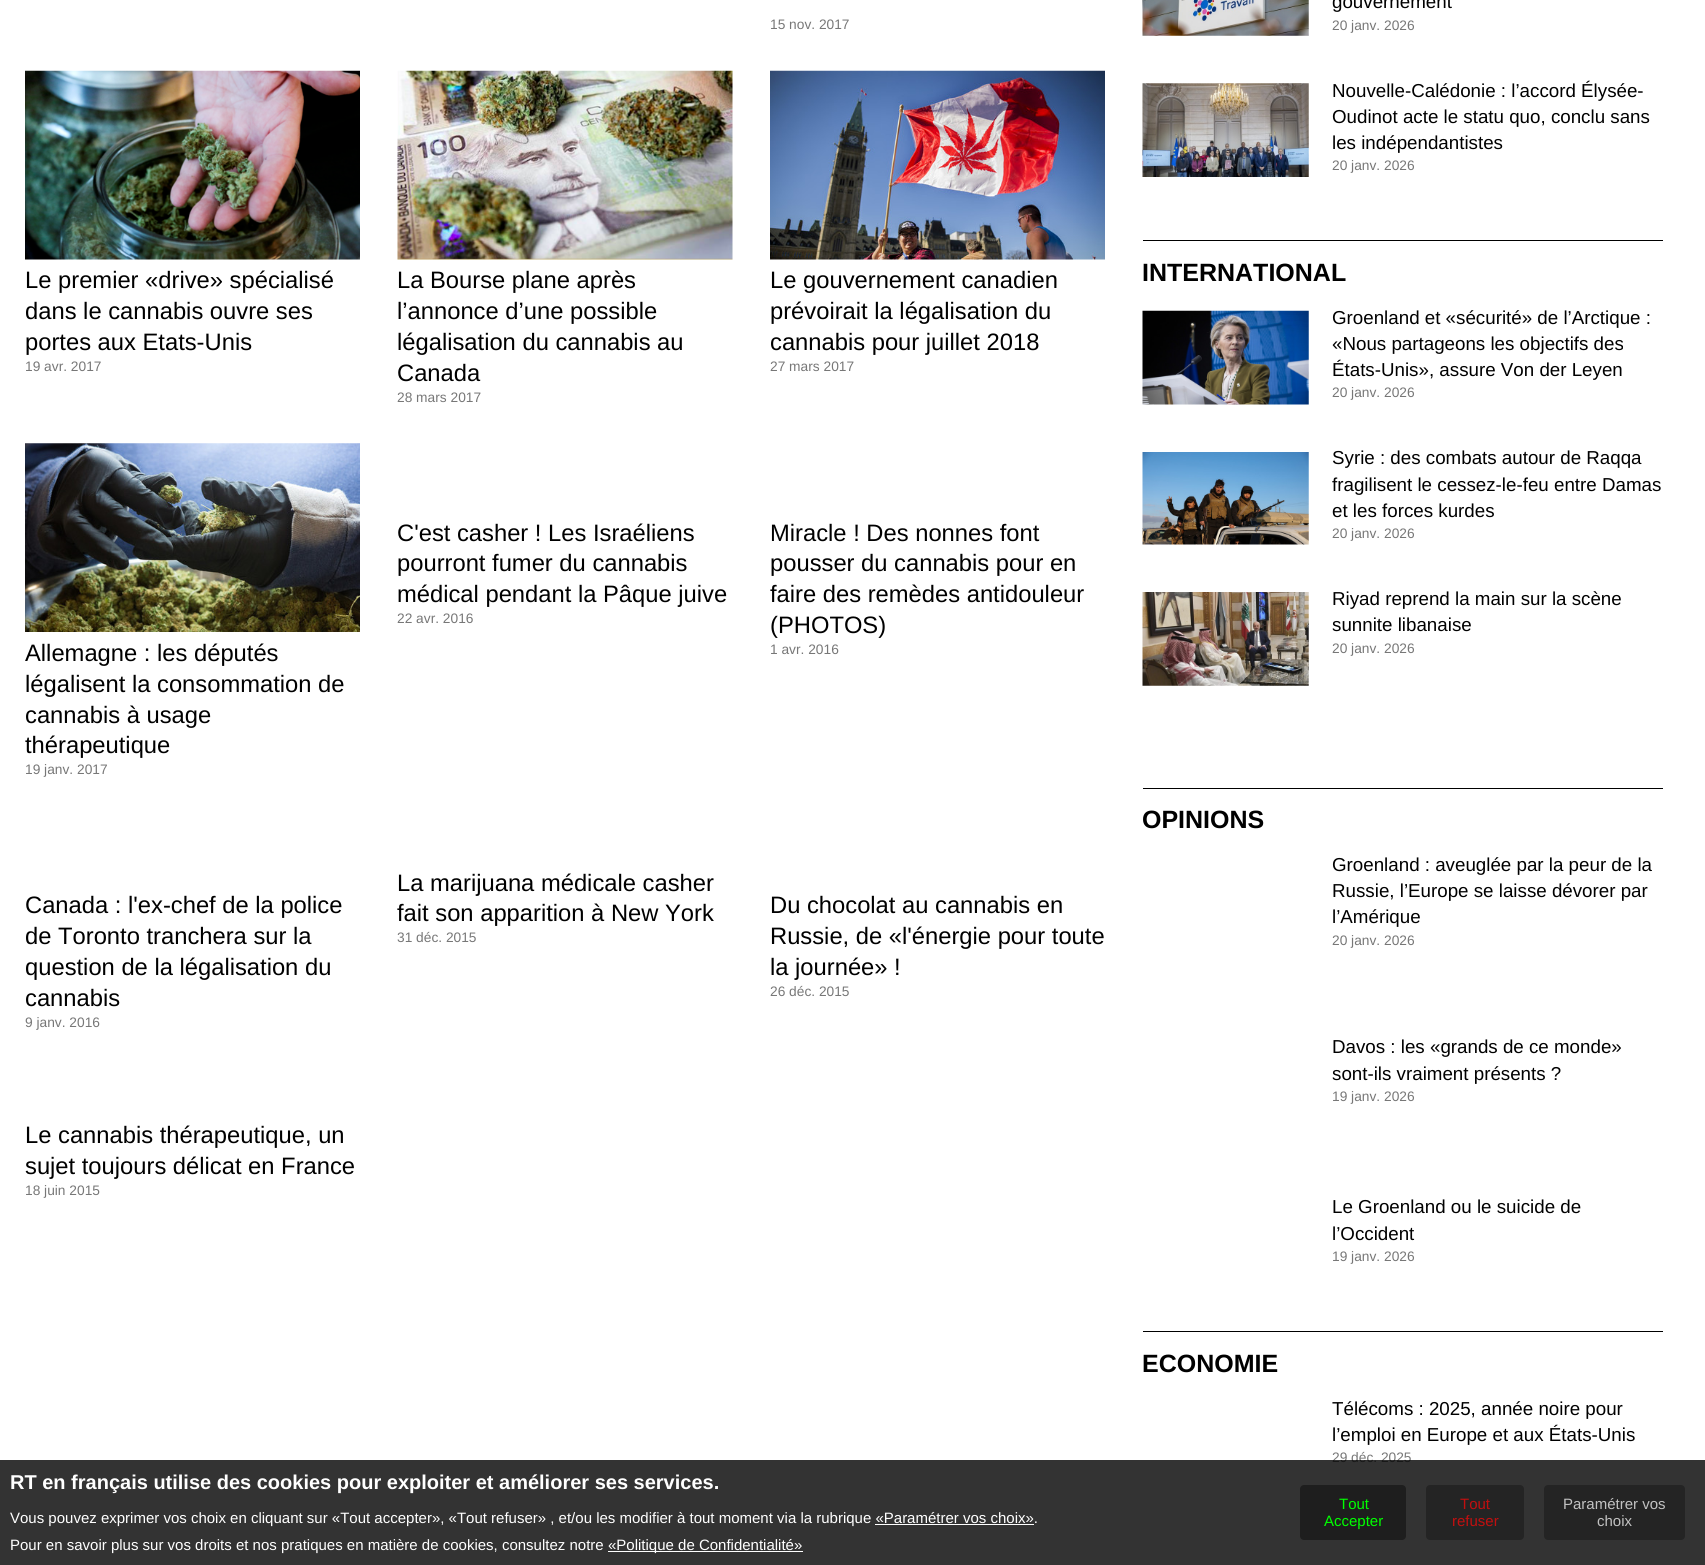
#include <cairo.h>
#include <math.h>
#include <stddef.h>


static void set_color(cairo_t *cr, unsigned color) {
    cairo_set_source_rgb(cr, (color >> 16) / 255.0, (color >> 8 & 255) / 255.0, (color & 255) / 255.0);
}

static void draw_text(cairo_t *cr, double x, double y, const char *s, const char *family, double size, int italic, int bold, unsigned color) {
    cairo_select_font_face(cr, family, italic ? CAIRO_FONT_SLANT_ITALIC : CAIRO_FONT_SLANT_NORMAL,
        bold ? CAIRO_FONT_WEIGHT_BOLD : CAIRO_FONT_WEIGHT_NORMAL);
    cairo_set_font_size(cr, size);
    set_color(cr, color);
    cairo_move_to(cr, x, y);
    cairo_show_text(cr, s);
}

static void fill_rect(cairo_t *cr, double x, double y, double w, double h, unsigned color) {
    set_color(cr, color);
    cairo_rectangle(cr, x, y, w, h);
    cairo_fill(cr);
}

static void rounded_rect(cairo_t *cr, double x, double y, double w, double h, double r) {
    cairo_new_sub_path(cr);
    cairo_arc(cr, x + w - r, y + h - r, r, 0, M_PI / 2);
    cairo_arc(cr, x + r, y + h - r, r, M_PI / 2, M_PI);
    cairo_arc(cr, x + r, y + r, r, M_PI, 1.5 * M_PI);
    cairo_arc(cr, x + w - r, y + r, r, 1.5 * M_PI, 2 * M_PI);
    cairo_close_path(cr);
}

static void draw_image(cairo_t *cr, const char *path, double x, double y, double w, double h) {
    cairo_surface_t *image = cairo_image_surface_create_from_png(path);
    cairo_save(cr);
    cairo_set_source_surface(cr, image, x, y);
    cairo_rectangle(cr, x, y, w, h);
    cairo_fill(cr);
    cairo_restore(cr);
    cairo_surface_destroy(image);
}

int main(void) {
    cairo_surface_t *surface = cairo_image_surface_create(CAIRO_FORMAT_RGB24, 1705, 1565);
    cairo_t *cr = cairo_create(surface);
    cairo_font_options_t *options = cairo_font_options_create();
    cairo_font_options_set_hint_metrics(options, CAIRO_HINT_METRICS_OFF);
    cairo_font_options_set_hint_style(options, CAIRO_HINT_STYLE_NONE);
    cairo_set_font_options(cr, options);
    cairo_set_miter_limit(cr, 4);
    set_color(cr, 0xFFFFFF);
    cairo_paint(cr);
    draw_text(cr, 770, 29, "15 nov. 2017", "Liberation Sans", 13.75, 0, 0, 0x777777);
    draw_image(cr, "assets/img1.png", 25, 70, 335, 190);
    draw_text(cr, 25, 288, "Le premier «drive» spécialisé", "Liberation Sans", 23.75, 0, 0, 0x000000);
    draw_text(cr, 25, 319, "dans le cannabis ouvre ses", "Liberation Sans", 23.75, 0, 0, 0x000000);
    draw_text(cr, 25, 350, "portes aux Etats-Unis", "Liberation Sans", 23.75, 0, 0, 0x000000);
    draw_text(cr, 25, 371, "19 avr. 2017", "Liberation Sans", 13.75, 0, 0, 0x777777);
    draw_image(cr, "assets/img2.png", 397, 70, 336, 190);
    draw_text(cr, 397, 288, "La Bourse plane après", "Liberation Sans", 23.75, 0, 0, 0x000000);
    draw_text(cr, 397, 319, "l’annonce d’une possible", "Liberation Sans", 23.75, 0, 0, 0x000000);
    draw_text(cr, 397, 350, "légalisation du cannabis au", "Liberation Sans", 23.75, 0, 0, 0x000000);
    draw_text(cr, 397, 381, "Canada", "Liberation Sans", 23.75, 0, 0, 0x000000);
    draw_text(cr, 397, 402, "28 mars 2017", "Liberation Sans", 13.75, 0, 0, 0x777777);
    draw_image(cr, "assets/img3.png", 770, 70, 335, 190);
    draw_text(cr, 770, 288, "Le gouvernement canadien", "Liberation Sans", 23.75, 0, 0, 0x000000);
    draw_text(cr, 770, 319, "prévoirait la légalisation du", "Liberation Sans", 23.75, 0, 0, 0x000000);
    draw_text(cr, 770, 350, "cannabis pour juillet 2018", "Liberation Sans", 23.75, 0, 0, 0x000000);
    draw_text(cr, 770, 371, "27 mars 2017", "Liberation Sans", 13.75, 0, 0, 0x777777);
    draw_text(cr, 397, 541, "C'est casher ! Les Israéliens", "Liberation Sans", 23.75, 0, 0, 0x000000);
    draw_text(cr, 397, 571, "pourront fumer du cannabis", "Liberation Sans", 23.75, 0, 0, 0x000000);
    draw_text(cr, 397, 602, "médical pendant la Pâque juive", "Liberation Sans", 23.75, 0, 0, 0x000000);
    draw_text(cr, 397, 623, "22 avr. 2016", "Liberation Sans", 13.75, 0, 0, 0x777777);
    draw_text(cr, 770, 541, "Miracle ! Des nonnes font", "Liberation Sans", 23.75, 0, 0, 0x000000);
    draw_text(cr, 770, 571, "pousser du cannabis pour en", "Liberation Sans", 23.75, 0, 0, 0x000000);
    draw_text(cr, 770, 602, "faire des remèdes antidouleur", "Liberation Sans", 23.75, 0, 0, 0x000000);
    draw_text(cr, 770, 633, "(PHOTOS)", "Liberation Sans", 23.75, 0, 0, 0x000000);
    draw_text(cr, 770, 654, "1 avr. 2016", "Liberation Sans", 13.75, 0, 0, 0x777777);
    draw_image(cr, "assets/img4.png", 25, 443, 335, 189);
    draw_text(cr, 25, 661, "Allemagne : les députés", "Liberation Sans", 23.75, 0, 0, 0x000000);
    draw_text(cr, 25, 692, "légalisent la consommation de", "Liberation Sans", 23.75, 0, 0, 0x000000);
    draw_text(cr, 25, 723, "cannabis à usage", "Liberation Sans", 23.75, 0, 0, 0x000000);
    draw_text(cr, 25, 753, "thérapeutique", "Liberation Sans", 23.75, 0, 0, 0x000000);
    draw_text(cr, 25, 774, "19 janv. 2017", "Liberation Sans", 13.75, 0, 0, 0x777777);
    draw_text(cr, 25, 913, "Canada : l'ex-chef de la police", "Liberation Sans", 23.75, 0, 0, 0x000000);
    draw_text(cr, 25, 944, "de Toronto tranchera sur la", "Liberation Sans", 23.75, 0, 0, 0x000000);
    draw_text(cr, 25, 975, "question de la légalisation du", "Liberation Sans", 23.75, 0, 0, 0x000000);
    draw_text(cr, 25, 1006, "cannabis", "Liberation Sans", 23.75, 0, 0, 0x000000);
    draw_text(cr, 25, 1027, "9 janv. 2016", "Liberation Sans", 13.75, 0, 0, 0x777777);
    draw_text(cr, 397, 891, "La marijuana médicale casher", "Liberation Sans", 23.75, 0, 0, 0x000000);
    draw_text(cr, 397, 921, "fait son apparition à New York", "Liberation Sans", 23.75, 0, 0, 0x000000);
    draw_text(cr, 397, 942, "31 déc. 2015", "Liberation Sans", 13.75, 0, 0, 0x777777);
    draw_text(cr, 770, 913, "Du chocolat au cannabis en", "Liberation Sans", 23.75, 0, 0, 0x000000);
    draw_text(cr, 770, 944, "Russie, de «l'énergie pour toute", "Liberation Sans", 23.75, 0, 0, 0x000000);
    draw_text(cr, 770, 975, "la journée» !", "Liberation Sans", 23.75, 0, 0, 0x000000);
    draw_text(cr, 770, 996, "26 déc. 2015", "Liberation Sans", 13.75, 0, 0, 0x777777);
    draw_text(cr, 25, 1143, "Le cannabis thérapeutique, un", "Liberation Sans", 23.75, 0, 0, 0x000000);
    draw_text(cr, 25, 1174, "sujet toujours délicat en France", "Liberation Sans", 23.75, 0, 0, 0x000000);
    draw_text(cr, 25, 1195, "18 juin 2015", "Liberation Sans", 13.75, 0, 0, 0x777777);
    draw_image(cr, "assets/img5.png", 1142, 0, 167, 36);
    draw_text(cr, 1332, 8, "gouvernement", "Liberation Sans", 18.75, 0, 0, 0x000000);
    draw_text(cr, 1332, 30, "20 janv. 2026", "Liberation Sans", 13.75, 0, 0, 0x777777);
    draw_image(cr, "assets/img6.png", 1142, 83, 167, 94);
    draw_text(cr, 1332, 97, "Nouvelle-Calédonie : l’accord Élysée-", "Liberation Sans", 18.75, 0, 0, 0x000000);
    draw_text(cr, 1332, 123, "Oudinot acte le statu quo, conclu sans", "Liberation Sans", 18.75, 0, 0, 0x000000);
    draw_text(cr, 1332, 149, "les indépendantistes", "Liberation Sans", 18.75, 0, 0, 0x000000);
    draw_text(cr, 1332, 170, "20 janv. 2026", "Liberation Sans", 13.75, 0, 0, 0x777777);
    fill_rect(cr, 1143, 240, 520, 1, 0x000000);
    draw_text(cr, 1142, 281, "INTERNATIONAL", "Liberation Sans", 25, 0, 1, 0x000000);
    draw_image(cr, "assets/img7.png", 1142, 310, 167, 95);
    draw_text(cr, 1332, 324, "Groenland et «sécurité» de l’Arctique :", "Liberation Sans", 18.75, 0, 0, 0x000000);
    draw_text(cr, 1332, 350, "«Nous partageons les objectifs des", "Liberation Sans", 18.75, 0, 0, 0x000000);
    draw_text(cr, 1332, 376, "États-Unis», assure Von der Leyen", "Liberation Sans", 18.75, 0, 0, 0x000000);
    draw_text(cr, 1332, 397, "20 janv. 2026", "Liberation Sans", 13.75, 0, 0, 0x777777);
    draw_image(cr, "assets/img8.png", 1142, 452, 167, 93);
    draw_text(cr, 1332, 464, "Syrie : des combats autour de Raqqa", "Liberation Sans", 18.75, 0, 0, 0x000000);
    draw_text(cr, 1332, 491, "fragilisent le cessez-le-feu entre Damas", "Liberation Sans", 18.75, 0, 0, 0x000000);
    draw_text(cr, 1332, 517, "et les forces kurdes", "Liberation Sans", 18.75, 0, 0, 0x000000);
    draw_text(cr, 1332, 538, "20 janv. 2026", "Liberation Sans", 13.75, 0, 0, 0x777777);
    draw_image(cr, "assets/img9.png", 1142, 592, 167, 94);
    draw_text(cr, 1332, 605, "Riyad reprend la main sur la scène", "Liberation Sans", 18.75, 0, 0, 0x000000);
    draw_text(cr, 1332, 631, "sunnite libanaise", "Liberation Sans", 18.75, 0, 0, 0x000000);
    draw_text(cr, 1332, 653, "20 janv. 2026", "Liberation Sans", 13.75, 0, 0, 0x777777);
    fill_rect(cr, 1143, 788, 520, 1, 0x000000);
    draw_text(cr, 1142, 828, "OPINIONS", "Liberation Sans", 25, 0, 1, 0x000000);
    draw_text(cr, 1332, 871, "Groenland : aveuglée par la peur de la", "Liberation Sans", 18.75, 0, 0, 0x000000);
    draw_text(cr, 1332, 897, "Russie, l’Europe se laisse dévorer par", "Liberation Sans", 18.75, 0, 0, 0x000000);
    draw_text(cr, 1332, 923, "l’Amérique", "Liberation Sans", 18.75, 0, 0, 0x000000);
    draw_text(cr, 1332, 945, "20 janv. 2026", "Liberation Sans", 13.75, 0, 0, 0x777777);
    draw_text(cr, 1332, 1053, "Davos : les «grands de ce monde»", "Liberation Sans", 18.75, 0, 0, 0x000000);
    draw_text(cr, 1332, 1080, "sont-ils vraiment présents ?", "Liberation Sans", 18.75, 0, 0, 0x000000);
    draw_text(cr, 1332, 1101, "19 janv. 2026", "Liberation Sans", 13.75, 0, 0, 0x777777);
    draw_text(cr, 1332, 1213, "Le Groenland ou le suicide de", "Liberation Sans", 18.75, 0, 0, 0x000000);
    draw_text(cr, 1332, 1240, "l’Occident", "Liberation Sans", 18.75, 0, 0, 0x000000);
    draw_text(cr, 1332, 1261, "19 janv. 2026", "Liberation Sans", 13.75, 0, 0, 0x777777);
    fill_rect(cr, 1143, 1331, 520, 1, 0x000000);
    draw_text(cr, 1142, 1372, "ECONOMIE", "Liberation Sans", 25, 0, 1, 0x000000);
    draw_text(cr, 1332, 1415, "Télécoms : 2025, année noire pour", "Liberation Sans", 18.75, 0, 0, 0x000000);
    draw_text(cr, 1332, 1441, "l’emploi en Europe et aux États-Unis", "Liberation Sans", 18.75, 0, 0, 0x000000);
    draw_text(cr, 1332, 1462, "29 déc. 2025", "Liberation Sans", 13.75, 0, 0, 0x777777);
    cairo_set_source_rgba(cr, 0, 0, 0, 0.8);
    cairo_rectangle(cr, 0, 1460, 1705, 105);
    cairo_fill(cr);
    draw_text(cr, 10, 1489, "RT en français utilise des cookies pour exploiter et améliorer ses services.", "Liberation Sans", 20, 0, 1, 0xFFFFFF);
    draw_text(cr, 10, 1523, "Vous pouvez exprimer vos choix en cliquant sur «Tout accepter», «Tout refuser» , et/ou les modifier à tout moment via la rubrique «Paramétrer vos choix».", "Liberation Sans", 15, 0, 0, 0xFFFFFF);
    fill_rect(cr, 875, 1524, 159, 1, 0xFFFFFF);
    draw_text(cr, 10, 1550, "Pour en savoir plus sur vos droits et nos pratiques en matière de cookies, consultez notre", "Liberation Sans", 15, 0, 0, 0xFFFFFF);
    fill_rect(cr, 608, 1551, 195, 1, 0xFFFFFF);
    draw_text(cr, 608, 1550, "«Politique de Confidentialité»", "Liberation Sans", 15, 0, 0, 0xFFFFFF);
    set_color(cr, 0x1E1E1E);
    rounded_rect(cr, 1300, 1485, 106, 55, 4);
    cairo_fill(cr);
    draw_text(cr, 1339, 1509, "Tout", "Liberation Sans", 15, 0, 0, 0x00FF00);
    draw_text(cr, 1324, 1526, "Accepter", "Liberation Sans", 15, 0, 0, 0x00FF00);
    set_color(cr, 0x242424);
    rounded_rect(cr, 1426, 1485, 98, 55, 4);
    cairo_fill(cr);
    draw_text(cr, 1460, 1509, "Tout", "Liberation Sans", 15, 0, 0, 0xC20F0F);
    draw_text(cr, 1452, 1526, "refuser", "Liberation Sans", 15, 0, 0, 0xC20F0F);
    set_color(cr, 0x242424);
    rounded_rect(cr, 1544, 1485, 141, 55, 4);
    cairo_fill(cr);
    draw_text(cr, 1563, 1509, "Paramétrer vos", "Liberation Sans", 15, 0, 0, 0xC2C2C2);
    draw_text(cr, 1597, 1526, "choix", "Liberation Sans", 15, 0, 0, 0xC2C2C2);
    cairo_surface_write_to_png(surface, "output.png");
    cairo_font_options_destroy(options);
    cairo_destroy(cr);
    cairo_surface_destroy(surface);
    return 0;
}
